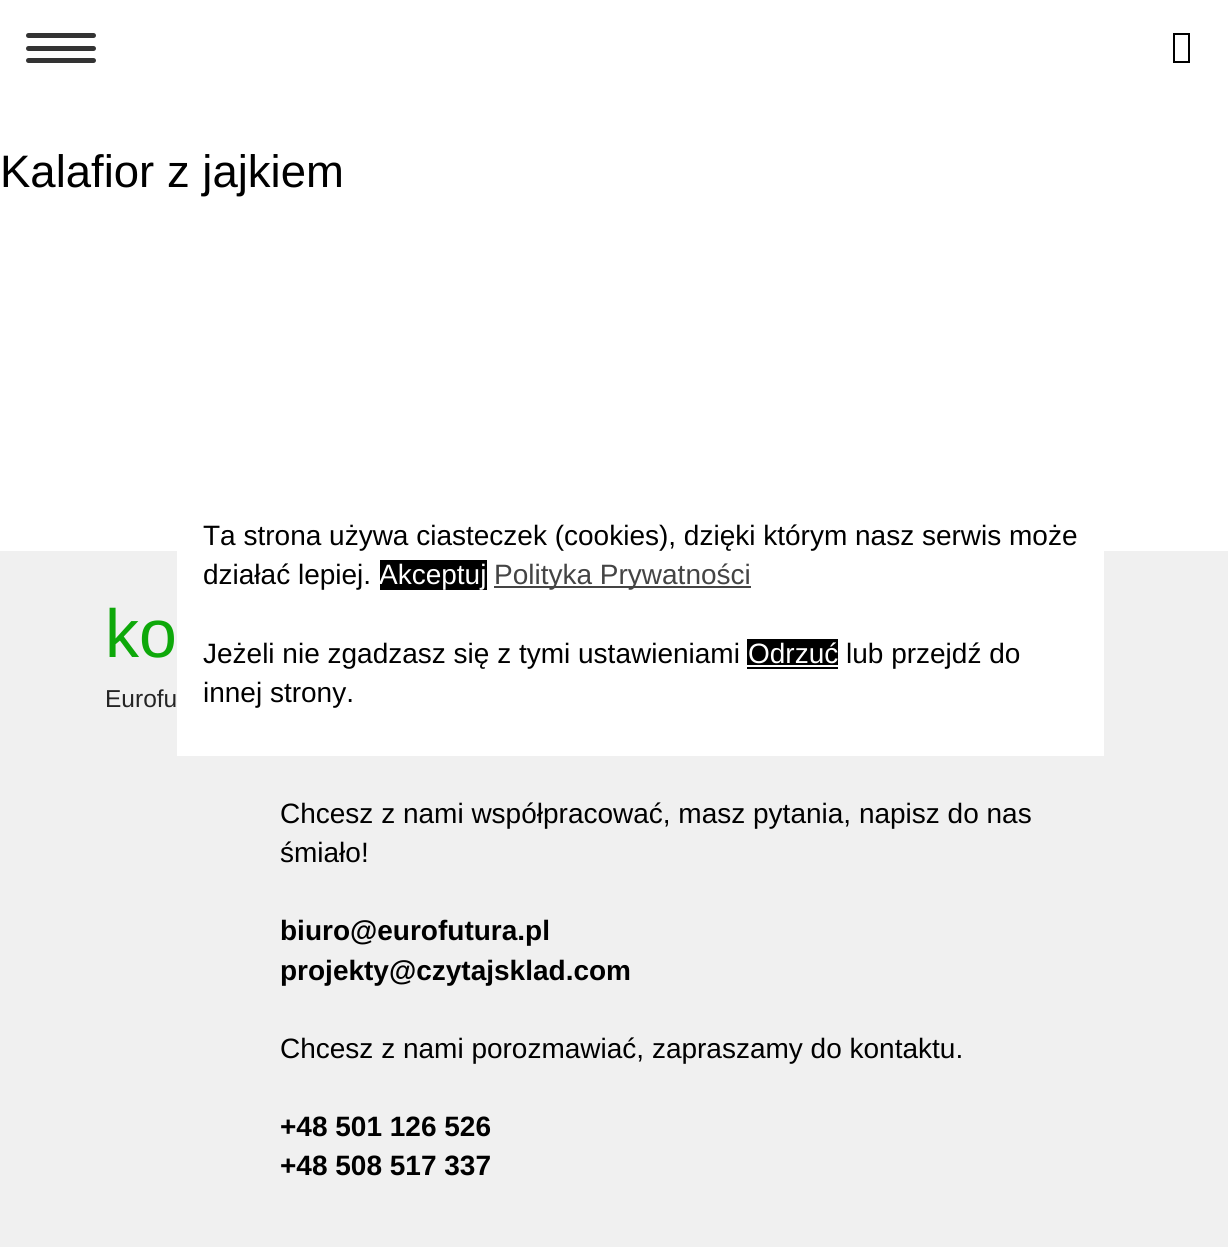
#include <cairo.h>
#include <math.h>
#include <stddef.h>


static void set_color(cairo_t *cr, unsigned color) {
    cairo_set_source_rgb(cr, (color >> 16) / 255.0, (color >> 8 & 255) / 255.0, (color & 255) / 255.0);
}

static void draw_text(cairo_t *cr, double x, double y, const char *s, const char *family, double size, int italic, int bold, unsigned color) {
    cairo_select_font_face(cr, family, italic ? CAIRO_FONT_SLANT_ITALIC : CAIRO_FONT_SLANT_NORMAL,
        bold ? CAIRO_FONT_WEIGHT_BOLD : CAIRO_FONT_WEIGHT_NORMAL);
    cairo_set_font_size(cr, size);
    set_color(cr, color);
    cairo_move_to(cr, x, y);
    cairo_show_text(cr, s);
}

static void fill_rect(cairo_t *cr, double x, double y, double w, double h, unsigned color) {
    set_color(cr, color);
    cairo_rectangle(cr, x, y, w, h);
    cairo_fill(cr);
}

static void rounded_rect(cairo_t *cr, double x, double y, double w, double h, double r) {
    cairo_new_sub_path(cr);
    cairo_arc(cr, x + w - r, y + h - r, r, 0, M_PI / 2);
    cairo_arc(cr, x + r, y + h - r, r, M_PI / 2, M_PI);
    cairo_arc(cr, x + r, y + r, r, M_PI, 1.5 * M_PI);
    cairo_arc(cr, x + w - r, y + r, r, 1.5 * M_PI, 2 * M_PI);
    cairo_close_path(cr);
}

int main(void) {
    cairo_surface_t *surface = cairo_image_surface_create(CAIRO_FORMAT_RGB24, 1228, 1247);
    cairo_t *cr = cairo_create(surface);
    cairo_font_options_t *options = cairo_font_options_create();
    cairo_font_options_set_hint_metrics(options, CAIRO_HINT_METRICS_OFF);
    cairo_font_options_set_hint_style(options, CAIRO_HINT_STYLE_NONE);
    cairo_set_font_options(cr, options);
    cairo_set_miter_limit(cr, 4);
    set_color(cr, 0xFFFFFF);
    cairo_paint(cr);
    set_color(cr, 0x333333);
    rounded_rect(cr, 26, 33, 70, 5, 2.5);
    cairo_fill(cr);
    rounded_rect(cr, 26, 46, 70, 5, 2.5);
    cairo_fill(cr);
    rounded_rect(cr, 26, 58, 70, 5, 2.5);
    cairo_fill(cr);
    set_color(cr, 0x000000);
    cairo_new_path(cr);
    cairo_move_to(cr, 1173, 63);
    cairo_line_to(cr, 1173, 33);
    cairo_line_to(cr, 1190, 33);
    cairo_line_to(cr, 1190, 63);
    cairo_close_path(cr);
    cairo_move_to(cr, 1175, 61);
    cairo_line_to(cr, 1188, 61);
    cairo_line_to(cr, 1188, 35);
    cairo_line_to(cr, 1175, 35);
    cairo_close_path(cr);
    cairo_fill(cr);
    draw_text(cr, 0, 187, "Kalafior z jajkiem", "Liberation Sans", 45.5, 0, 0, 0x000000);
    fill_rect(cr, 0, 551, 1228, 696, 0xF0F0F0);
    draw_text(cr, 105, 657, "ko", "Liberation Sans", 68, 0, 0, 0x0EA80A);
    draw_text(cr, 105, 707, "Eurofu", "Liberation Sans", 24.5, 0, 0, 0x242424);
    draw_text(cr, 280, 823, "Chcesz z nami współpracować, masz pytania, napisz do nas", "Liberation Sans", 28, 0, 0, 0x000000);
    draw_text(cr, 280, 862, "śmiało!", "Liberation Sans", 28, 0, 0, 0x000000);
    draw_text(cr, 280, 940, "biuro@eurofutura.pl", "Liberation Sans", 28, 0, 1, 0x000000);
    draw_text(cr, 280, 980, "projekty@czytajsklad.com", "Liberation Sans", 28, 0, 1, 0x000000);
    draw_text(cr, 280, 1058, "Chcesz z nami porozmawiać, zapraszamy do kontaktu.", "Liberation Sans", 28, 0, 0, 0x000000);
    draw_text(cr, 280, 1136, "+48 501 126 526", "Liberation Sans", 28, 0, 1, 0x000000);
    draw_text(cr, 280, 1175, "+48 508 517 337", "Liberation Sans", 28, 0, 1, 0x000000);
    fill_rect(cr, 177, 551, 927, 205, 0xFFFFFF);
    draw_text(cr, 203, 545, "Ta strona używa ciasteczek (cookies), dzięki którym nasz serwis może", "Liberation Sans", 28, 0, 0, 0x000000);
    draw_text(cr, 203, 584, "działać lepiej.", "Liberation Sans", 28, 0, 0, 0x000000);
    fill_rect(cr, 380, 560, 107, 30, 0x000000);
    draw_text(cr, 379, 584, "Akceptuj", "Liberation Sans", 28, 0, 0, 0xFFFFFF);
    fill_rect(cr, 494, 586, 257, 2, 0x444444);
    draw_text(cr, 494, 584, "Polityka Prywatności", "Liberation Sans", 28, 0, 0, 0x444444);
    draw_text(cr, 203, 663, "Jeżeli nie zgadzasz się z tymi ustawieniami", "Liberation Sans", 28, 0, 0, 0x000000);
    fill_rect(cr, 747, 639, 91, 30, 0x000000);
    draw_text(cr, 748, 663, "Odrzuć", "Liberation Sans", 28, 0, 0, 0xFFFFFF);
    fill_rect(cr, 747, 665, 91, 2, 0xFFFFFF);
    draw_text(cr, 846, 663, "lub przejdź do", "Liberation Sans", 28, 0, 0, 0x000000);
    draw_text(cr, 203, 702, "innej strony.", "Liberation Sans", 28, 0, 0, 0x000000);
    cairo_surface_write_to_png(surface, "output.png");
    cairo_font_options_destroy(options);
    cairo_destroy(cr);
    cairo_surface_destroy(surface);
    return 0;
}
